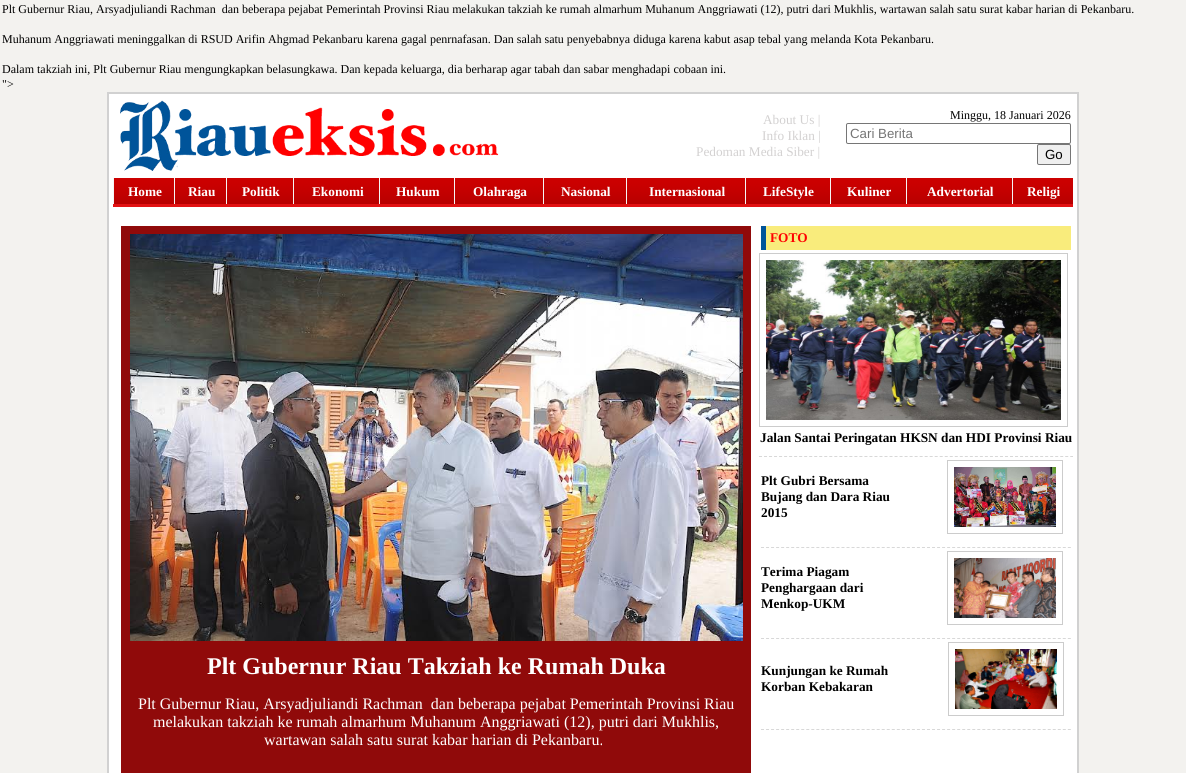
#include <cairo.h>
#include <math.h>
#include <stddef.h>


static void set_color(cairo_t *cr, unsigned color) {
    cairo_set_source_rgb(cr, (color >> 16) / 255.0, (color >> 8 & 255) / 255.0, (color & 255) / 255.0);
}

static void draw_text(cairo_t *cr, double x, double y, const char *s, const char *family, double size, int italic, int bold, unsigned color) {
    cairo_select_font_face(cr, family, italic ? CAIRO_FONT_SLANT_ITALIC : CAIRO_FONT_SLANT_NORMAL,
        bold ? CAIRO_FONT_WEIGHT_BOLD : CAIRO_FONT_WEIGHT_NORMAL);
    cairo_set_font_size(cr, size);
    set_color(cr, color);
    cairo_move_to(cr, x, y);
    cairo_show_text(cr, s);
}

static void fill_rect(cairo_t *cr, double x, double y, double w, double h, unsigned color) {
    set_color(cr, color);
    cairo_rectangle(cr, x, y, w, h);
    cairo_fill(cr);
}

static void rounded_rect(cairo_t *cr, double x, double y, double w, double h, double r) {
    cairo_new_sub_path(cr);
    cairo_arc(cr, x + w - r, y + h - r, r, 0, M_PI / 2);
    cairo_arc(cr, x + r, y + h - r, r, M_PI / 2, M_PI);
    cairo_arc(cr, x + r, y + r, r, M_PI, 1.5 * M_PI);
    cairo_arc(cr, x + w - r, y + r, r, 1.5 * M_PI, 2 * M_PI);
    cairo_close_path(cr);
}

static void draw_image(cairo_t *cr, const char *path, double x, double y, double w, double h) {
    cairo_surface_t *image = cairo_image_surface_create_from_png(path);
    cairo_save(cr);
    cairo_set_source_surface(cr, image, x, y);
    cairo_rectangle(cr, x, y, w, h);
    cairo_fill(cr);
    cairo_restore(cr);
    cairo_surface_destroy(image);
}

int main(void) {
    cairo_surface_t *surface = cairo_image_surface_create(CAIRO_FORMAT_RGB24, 1186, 773);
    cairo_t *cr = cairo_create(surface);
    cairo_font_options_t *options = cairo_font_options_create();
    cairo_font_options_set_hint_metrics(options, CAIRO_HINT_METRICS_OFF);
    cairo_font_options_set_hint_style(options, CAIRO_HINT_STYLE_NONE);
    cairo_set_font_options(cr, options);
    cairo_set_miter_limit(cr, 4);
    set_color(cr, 0xF3F2EF);
    cairo_paint(cr);
    draw_text(cr, 2, 13, "Plt Gubernur Riau, Arsyadjuliandi Rachman  dan beberapa pejabat Pemerintah Provinsi Riau melakukan takziah ke rumah almarhum Muhanum Anggriawati (12), putri dari Mukhlis, wartawan salah satu surat kabar harian di Pekanbaru.", "Liberation Serif", 12, 0, 0, 0x000000);
    draw_text(cr, 2, 43, "Muhanum Anggriawati meninggalkan di RSUD Arifin Ahgmad Pekanbaru karena gagal penrnafasan. Dan salah satu penyebabnya diduga karena kabut asap tebal yang melanda Kota Pekanbaru.", "Liberation Serif", 12, 0, 0, 0x000000);
    draw_text(cr, 2, 73, "Dalam takziah ini, Plt Gubernur Riau mengungkapkan belasungkawa. Dan kepada keluarga, dia berharap agar tabah dan sabar menghadapi cobaan ini.", "Liberation Serif", 12, 0, 0, 0x000000);
    draw_text(cr, 2, 88, "\">", "Liberation Serif", 12, 0, 0, 0x000000);
    set_color(cr, 0xFFFFFF);
    cairo_rectangle(cr, 108, 93, 970, 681);
    cairo_fill_preserve(cr);
    set_color(cr, 0xD1D1D1);
    cairo_stroke(cr);
    draw_image(cr, "assets/img1.png", 120, 100, 379, 71);
    draw_text(cr, 763, 124, "About Us |", "Liberation Serif", 13.3, 0, 0, 0xD3D1D1);
    draw_text(cr, 762, 140, "Info Iklan |", "Liberation Serif", 13.3, 0, 0, 0xD3D1D1);
    draw_text(cr, 696, 156, "Pedoman Media Siber |", "Liberation Serif", 13.3, 0, 0, 0xD3D1D1);
    draw_text(cr, 950, 119, "Minggu, 18 Januari 2026", "Liberation Serif", 12, 0, 0, 0x000000);
    rounded_rect(cr, 846.5, 123.5, 224, 20, 1.5);
    set_color(cr, 0x767676);
    cairo_set_line_width(cr, 1);
    cairo_stroke(cr);
    draw_text(cr, 850, 138, "Cari Berita", "Liberation Sans", 13.3, 0, 0, 0x757575);
    set_color(cr, 0xEFEFEF);
    rounded_rect(cr, 1037.5, 144.5, 33, 20, 1.5);
    cairo_fill_preserve(cr);
    set_color(cr, 0x767676);
    cairo_stroke(cr);
    draw_text(cr, 1045, 159, "Go", "Liberation Sans", 13.3, 0, 0, 0x000000);
    fill_rect(cr, 113, 178, 900, 26, 0xF5F5F5);
    fill_rect(cr, 113, 204, 960, 3, 0xE21213);
    draw_image(cr, "assets/img2.png", 114, 178, 60, 26);
    draw_text(cr, 128, 196, "Home", "Liberation Serif", 13.3, 0, 1, 0xFFFFFF);
    draw_image(cr, "assets/img3.png", 175, 178, 51, 26);
    draw_text(cr, 188, 196, "Riau", "Liberation Serif", 13.3, 0, 1, 0xFFFFFF);
    draw_image(cr, "assets/img4.png", 227, 178, 66, 26);
    draw_text(cr, 242, 196, "Politik", "Liberation Serif", 13.3, 0, 1, 0xFFFFFF);
    draw_image(cr, "assets/img5.png", 294, 178, 85, 26);
    draw_text(cr, 312, 196, "Ekonomi", "Liberation Serif", 13.3, 0, 1, 0xFFFFFF);
    draw_image(cr, "assets/img6.png", 380, 178, 74, 26);
    draw_text(cr, 396, 196, "Hukum", "Liberation Serif", 13.3, 0, 1, 0xFFFFFF);
    draw_image(cr, "assets/img7.png", 455, 178, 88, 26);
    draw_text(cr, 473, 196, "Olahraga", "Liberation Serif", 13.3, 0, 1, 0xFFFFFF);
    draw_image(cr, "assets/img8.png", 544, 178, 82, 26);
    draw_text(cr, 561, 196, "Nasional", "Liberation Serif", 13.3, 0, 1, 0xFFFFFF);
    draw_image(cr, "assets/img9.png", 627, 178, 118, 26);
    draw_text(cr, 649, 196, "Internasional", "Liberation Serif", 13.3, 0, 1, 0xFFFFFF);
    draw_image(cr, "assets/img10.png", 746, 178, 84, 26);
    draw_text(cr, 763, 196, "LifeStyle", "Liberation Serif", 13.3, 0, 1, 0xFFFFFF);
    draw_image(cr, "assets/img11.png", 831, 178, 75, 26);
    draw_text(cr, 847, 196, "Kuliner", "Liberation Serif", 13.3, 0, 1, 0xFFFFFF);
    draw_image(cr, "assets/img12.png", 907, 178, 105, 26);
    draw_text(cr, 927, 196, "Advertorial", "Liberation Serif", 13.3, 0, 1, 0xFFFFFF);
    draw_image(cr, "assets/img2.png", 1013, 178, 60, 26);
    draw_text(cr, 1027, 196, "Religi", "Liberation Serif", 13.3, 0, 1, 0xFFFFFF);
    fill_rect(cr, 766, 226, 305, 24, 0xF9EC7C);
    fill_rect(cr, 761, 226, 5, 24, 0x00549A);
    draw_text(cr, 770, 242, "FOTO", "Liberation Serif", 13.3, 0, 1, 0xFF0000);
    cairo_new_path(cr);
    cairo_move_to(cr, 759, 456.5);
    cairo_line_to(cr, 1073, 456.5);
    set_color(cr, 0xD8D8D8);
    cairo_set_dash(cr, (double[]){3, 2.02}, 2, 0);
    cairo_stroke(cr);
    cairo_rectangle(cr, 759.5, 253.5, 308, 173);
    set_color(cr, 0xCCCCCC);
    cairo_set_dash(cr, NULL, 0, 0);
    cairo_stroke(cr);
    draw_image(cr, "assets/img13.png", 766, 260, 295, 160);
    draw_text(cr, 760, 442, "Jalan Santai Peringatan HKSN dan HDI Provinsi Riau", "Liberation Serif", 13.3, 0, 1, 0x000000);
    cairo_new_path(cr);
    cairo_move_to(cr, 761, 547.5);
    cairo_line_to(cr, 1071, 547.5);
    set_color(cr, 0xD8D8D8);
    cairo_set_dash(cr, (double[]){3, 2.03}, 2, 0);
    cairo_stroke(cr);
    draw_text(cr, 761, 485, "Plt Gubri Bersama", "Liberation Serif", 13.3, 0, 1, 0x000000);
    draw_text(cr, 761, 501, "Bujang dan Dara Riau", "Liberation Serif", 13.3, 0, 1, 0x000000);
    draw_text(cr, 761, 517, "2015", "Liberation Serif", 13.3, 0, 1, 0x000000);
    cairo_rectangle(cr, 947.5, 460.5, 115, 73);
    set_color(cr, 0xCCCCCC);
    cairo_set_dash(cr, NULL, 0, 0);
    cairo_stroke(cr);
    draw_image(cr, "assets/img14.png", 954, 467, 102, 60);
    cairo_new_path(cr);
    cairo_move_to(cr, 761, 638.5);
    cairo_line_to(cr, 1071, 638.5);
    set_color(cr, 0xD8D8D8);
    cairo_set_dash(cr, (double[]){3, 2.03}, 2, 0);
    cairo_stroke(cr);
    draw_text(cr, 761, 576, "Terima Piagam", "Liberation Serif", 13.3, 0, 1, 0x000000);
    draw_text(cr, 761, 592, "Penghargaan dari", "Liberation Serif", 13.3, 0, 1, 0x000000);
    draw_text(cr, 761, 608, "Menkop-UKM", "Liberation Serif", 13.3, 0, 1, 0x000000);
    cairo_rectangle(cr, 947.5, 551.5, 115, 73);
    set_color(cr, 0xCCCCCC);
    cairo_set_dash(cr, NULL, 0, 0);
    cairo_stroke(cr);
    draw_image(cr, "assets/img15.png", 954, 558, 102, 60);
    cairo_new_path(cr);
    cairo_move_to(cr, 761, 729.5);
    cairo_line_to(cr, 1071, 729.5);
    set_color(cr, 0xD8D8D8);
    cairo_set_dash(cr, (double[]){3, 2.03}, 2, 0);
    cairo_stroke(cr);
    draw_text(cr, 761, 675, "Kunjungan ke Rumah", "Liberation Serif", 13.3, 0, 1, 0x000000);
    draw_text(cr, 761, 691, "Korban Kebakaran", "Liberation Serif", 13.3, 0, 1, 0x000000);
    cairo_rectangle(cr, 948.5, 642.5, 115, 73);
    set_color(cr, 0xCCCCCC);
    cairo_set_dash(cr, NULL, 0, 0);
    cairo_stroke(cr);
    draw_image(cr, "assets/img16.png", 955, 649, 102, 60);
    fill_rect(cr, 121, 226, 630, 547, 0x900A0A);
    draw_image(cr, "assets/img17.png", 130, 234, 613, 407);
    draw_text(cr, 207, 674, "Plt Gubernur Riau Takziah ke Rumah Duka", "Liberation Serif", 24, 0, 1, 0xFFFFFF);
    draw_text(cr, 138, 709, "Plt Gubernur Riau, Arsyadjuliandi Rachman  dan beberapa pejabat Pemerintah Provinsi Riau", "Liberation Serif", 16, 0, 0, 0xFFFFFF);
    draw_text(cr, 153, 727, "melakukan takziah ke rumah almarhum Muhanum Anggriawati (12), putri dari Mukhlis,", "Liberation Serif", 16, 0, 0, 0xFFFFFF);
    draw_text(cr, 264, 745, "wartawan salah satu surat kabar harian di Pekanbaru.", "Liberation Serif", 16, 0, 0, 0xFFFFFF);
    cairo_surface_write_to_png(surface, "output.png");
    cairo_font_options_destroy(options);
    cairo_destroy(cr);
    cairo_surface_destroy(surface);
    return 0;
}
